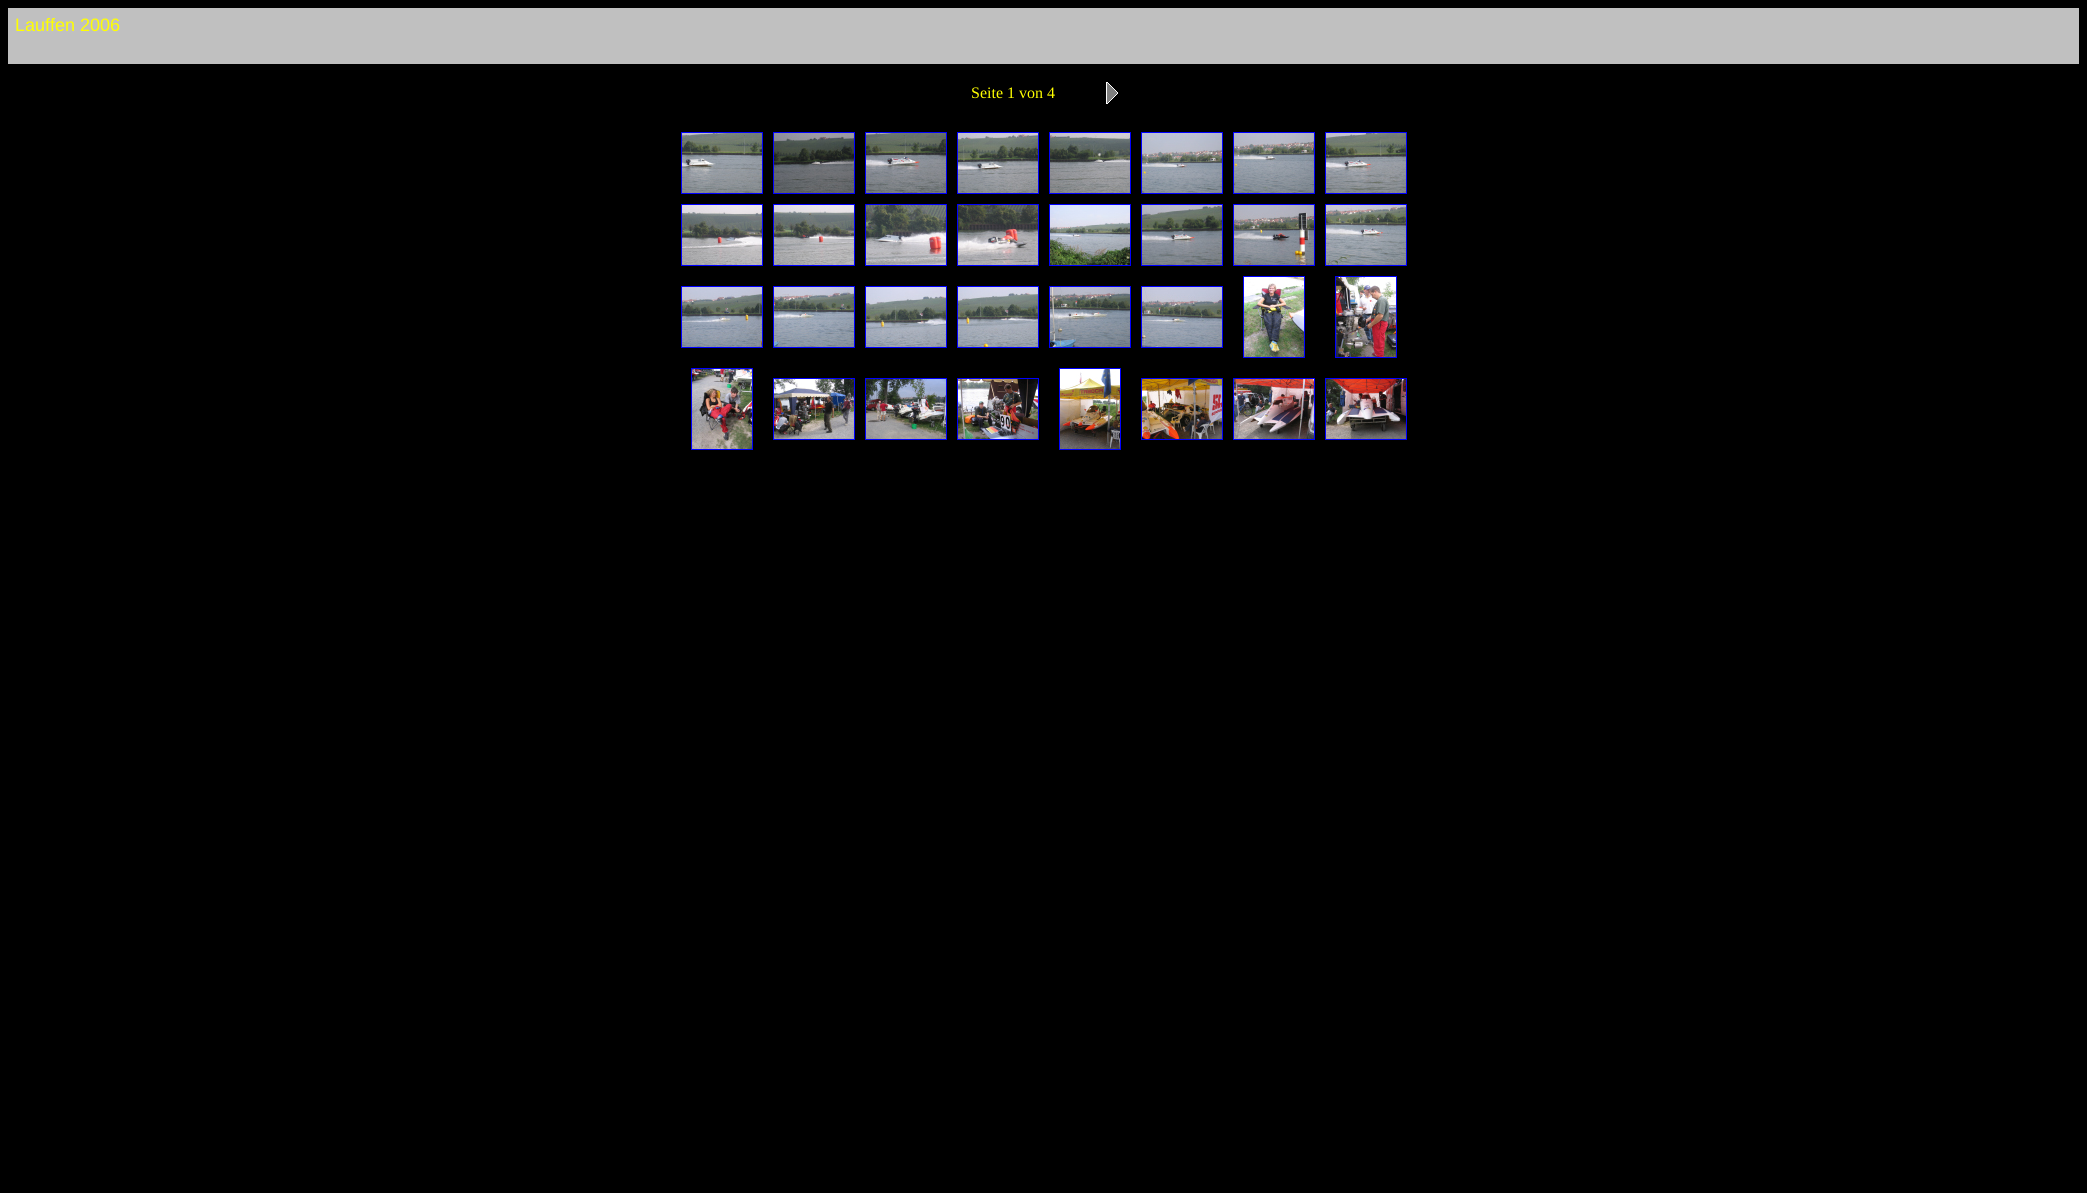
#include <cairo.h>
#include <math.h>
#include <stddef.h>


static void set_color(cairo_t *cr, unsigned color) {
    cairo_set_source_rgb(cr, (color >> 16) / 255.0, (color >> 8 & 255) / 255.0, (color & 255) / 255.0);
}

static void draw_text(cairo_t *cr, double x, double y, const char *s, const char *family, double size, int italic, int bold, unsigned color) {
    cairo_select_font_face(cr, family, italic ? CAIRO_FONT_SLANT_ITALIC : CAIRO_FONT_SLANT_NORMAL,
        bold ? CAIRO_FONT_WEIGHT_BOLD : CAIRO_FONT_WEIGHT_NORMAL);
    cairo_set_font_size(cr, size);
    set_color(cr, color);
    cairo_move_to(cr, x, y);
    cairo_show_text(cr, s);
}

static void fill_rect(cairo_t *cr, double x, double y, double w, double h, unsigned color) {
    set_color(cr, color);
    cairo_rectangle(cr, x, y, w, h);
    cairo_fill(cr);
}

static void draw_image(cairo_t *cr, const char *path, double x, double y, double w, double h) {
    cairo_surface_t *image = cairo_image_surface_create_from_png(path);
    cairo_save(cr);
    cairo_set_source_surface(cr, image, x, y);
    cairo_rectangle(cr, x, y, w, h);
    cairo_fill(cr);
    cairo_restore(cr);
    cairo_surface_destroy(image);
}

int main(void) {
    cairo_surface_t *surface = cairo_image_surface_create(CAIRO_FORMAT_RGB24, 2087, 1193);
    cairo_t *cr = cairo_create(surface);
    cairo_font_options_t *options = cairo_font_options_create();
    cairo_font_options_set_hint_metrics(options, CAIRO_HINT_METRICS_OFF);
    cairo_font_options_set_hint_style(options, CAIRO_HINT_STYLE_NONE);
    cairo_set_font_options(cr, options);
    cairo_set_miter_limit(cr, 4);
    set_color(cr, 0x000000);
    cairo_paint(cr);
    fill_rect(cr, 8, 8, 2071, 56, 0xC0C0C0);
    draw_text(cr, 15, 31, "Lauffen 2006", "Liberation Sans", 18, 0, 0, 0xFFFF00);
    draw_text(cr, 971, 98, "Seite 1 von 4", "Liberation Serif", 16, 0, 0, 0xFFFF00);
    draw_image(cr, "assets/img1.png", 1106, 82, 12, 22);
    cairo_rectangle(cr, 681.5, 132.5, 81, 61);
    set_color(cr, 0x0000FF);
    cairo_set_line_width(cr, 1);
    cairo_stroke(cr);
    draw_image(cr, "assets/img2.png", 682, 133, 80, 60);
    cairo_rectangle(cr, 773.5, 132.5, 81, 61);
    cairo_stroke(cr);
    draw_image(cr, "assets/img3.png", 774, 133, 80, 60);
    cairo_rectangle(cr, 865.5, 132.5, 81, 61);
    cairo_stroke(cr);
    draw_image(cr, "assets/img4.png", 866, 133, 80, 60);
    cairo_rectangle(cr, 957.5, 132.5, 81, 61);
    cairo_stroke(cr);
    draw_image(cr, "assets/img5.png", 958, 133, 80, 60);
    cairo_rectangle(cr, 1049.5, 132.5, 81, 61);
    cairo_stroke(cr);
    draw_image(cr, "assets/img6.png", 1050, 133, 80, 60);
    cairo_rectangle(cr, 1141.5, 132.5, 81, 61);
    cairo_stroke(cr);
    draw_image(cr, "assets/img7.png", 1142, 133, 80, 60);
    cairo_rectangle(cr, 1233.5, 132.5, 81, 61);
    cairo_stroke(cr);
    draw_image(cr, "assets/img8.png", 1234, 133, 80, 60);
    cairo_rectangle(cr, 1325.5, 132.5, 81, 61);
    cairo_stroke(cr);
    draw_image(cr, "assets/img9.png", 1326, 133, 80, 60);
    cairo_rectangle(cr, 681.5, 204.5, 81, 61);
    cairo_stroke(cr);
    draw_image(cr, "assets/img10.png", 682, 205, 80, 60);
    cairo_rectangle(cr, 773.5, 204.5, 81, 61);
    cairo_stroke(cr);
    draw_image(cr, "assets/img11.png", 774, 205, 80, 60);
    cairo_rectangle(cr, 865.5, 204.5, 81, 61);
    cairo_stroke(cr);
    draw_image(cr, "assets/img12.png", 866, 205, 80, 60);
    cairo_rectangle(cr, 957.5, 204.5, 81, 61);
    cairo_stroke(cr);
    draw_image(cr, "assets/img13.png", 958, 205, 80, 60);
    cairo_rectangle(cr, 1049.5, 204.5, 81, 61);
    cairo_stroke(cr);
    draw_image(cr, "assets/img14.png", 1050, 205, 80, 60);
    cairo_rectangle(cr, 1141.5, 204.5, 81, 61);
    cairo_stroke(cr);
    draw_image(cr, "assets/img15.png", 1142, 205, 80, 60);
    cairo_rectangle(cr, 1233.5, 204.5, 81, 61);
    cairo_stroke(cr);
    draw_image(cr, "assets/img16.png", 1234, 205, 80, 60);
    cairo_rectangle(cr, 1325.5, 204.5, 81, 61);
    cairo_stroke(cr);
    draw_image(cr, "assets/img17.png", 1326, 205, 80, 60);
    cairo_rectangle(cr, 681.5, 286.5, 81, 61);
    cairo_stroke(cr);
    draw_image(cr, "assets/img18.png", 682, 287, 80, 60);
    cairo_rectangle(cr, 773.5, 286.5, 81, 61);
    cairo_stroke(cr);
    draw_image(cr, "assets/img19.png", 774, 287, 80, 60);
    cairo_rectangle(cr, 865.5, 286.5, 81, 61);
    cairo_stroke(cr);
    draw_image(cr, "assets/img20.png", 866, 287, 80, 60);
    cairo_rectangle(cr, 957.5, 286.5, 81, 61);
    cairo_stroke(cr);
    draw_image(cr, "assets/img21.png", 958, 287, 80, 60);
    cairo_rectangle(cr, 1049.5, 286.5, 81, 61);
    cairo_stroke(cr);
    draw_image(cr, "assets/img22.png", 1050, 287, 80, 60);
    cairo_rectangle(cr, 1141.5, 286.5, 81, 61);
    cairo_stroke(cr);
    draw_image(cr, "assets/img23.png", 1142, 287, 80, 60);
    cairo_rectangle(cr, 1243.5, 276.5, 61, 81);
    cairo_stroke(cr);
    draw_image(cr, "assets/img24.png", 1244, 277, 60, 80);
    cairo_rectangle(cr, 1335.5, 276.5, 61, 81);
    cairo_stroke(cr);
    draw_image(cr, "assets/img25.png", 1336, 277, 60, 80);
    cairo_rectangle(cr, 691.5, 368.5, 61, 81);
    cairo_stroke(cr);
    draw_image(cr, "assets/img26.png", 692, 369, 60, 80);
    cairo_rectangle(cr, 773.5, 378.5, 81, 61);
    cairo_stroke(cr);
    draw_image(cr, "assets/img27.png", 774, 379, 80, 60);
    cairo_rectangle(cr, 865.5, 378.5, 81, 61);
    cairo_stroke(cr);
    draw_image(cr, "assets/img28.png", 866, 379, 80, 60);
    cairo_rectangle(cr, 957.5, 378.5, 81, 61);
    cairo_stroke(cr);
    draw_image(cr, "assets/img29.png", 958, 379, 80, 60);
    cairo_rectangle(cr, 1059.5, 368.5, 61, 81);
    cairo_stroke(cr);
    draw_image(cr, "assets/img30.png", 1060, 369, 60, 80);
    cairo_rectangle(cr, 1141.5, 378.5, 81, 61);
    cairo_stroke(cr);
    draw_image(cr, "assets/img31.png", 1142, 379, 80, 60);
    cairo_rectangle(cr, 1233.5, 378.5, 81, 61);
    cairo_stroke(cr);
    draw_image(cr, "assets/img32.png", 1234, 379, 80, 60);
    cairo_rectangle(cr, 1325.5, 378.5, 81, 61);
    cairo_stroke(cr);
    draw_image(cr, "assets/img33.png", 1326, 379, 80, 60);
    cairo_surface_write_to_png(surface, "output.png");
    cairo_font_options_destroy(options);
    cairo_destroy(cr);
    cairo_surface_destroy(surface);
    return 0;
}
